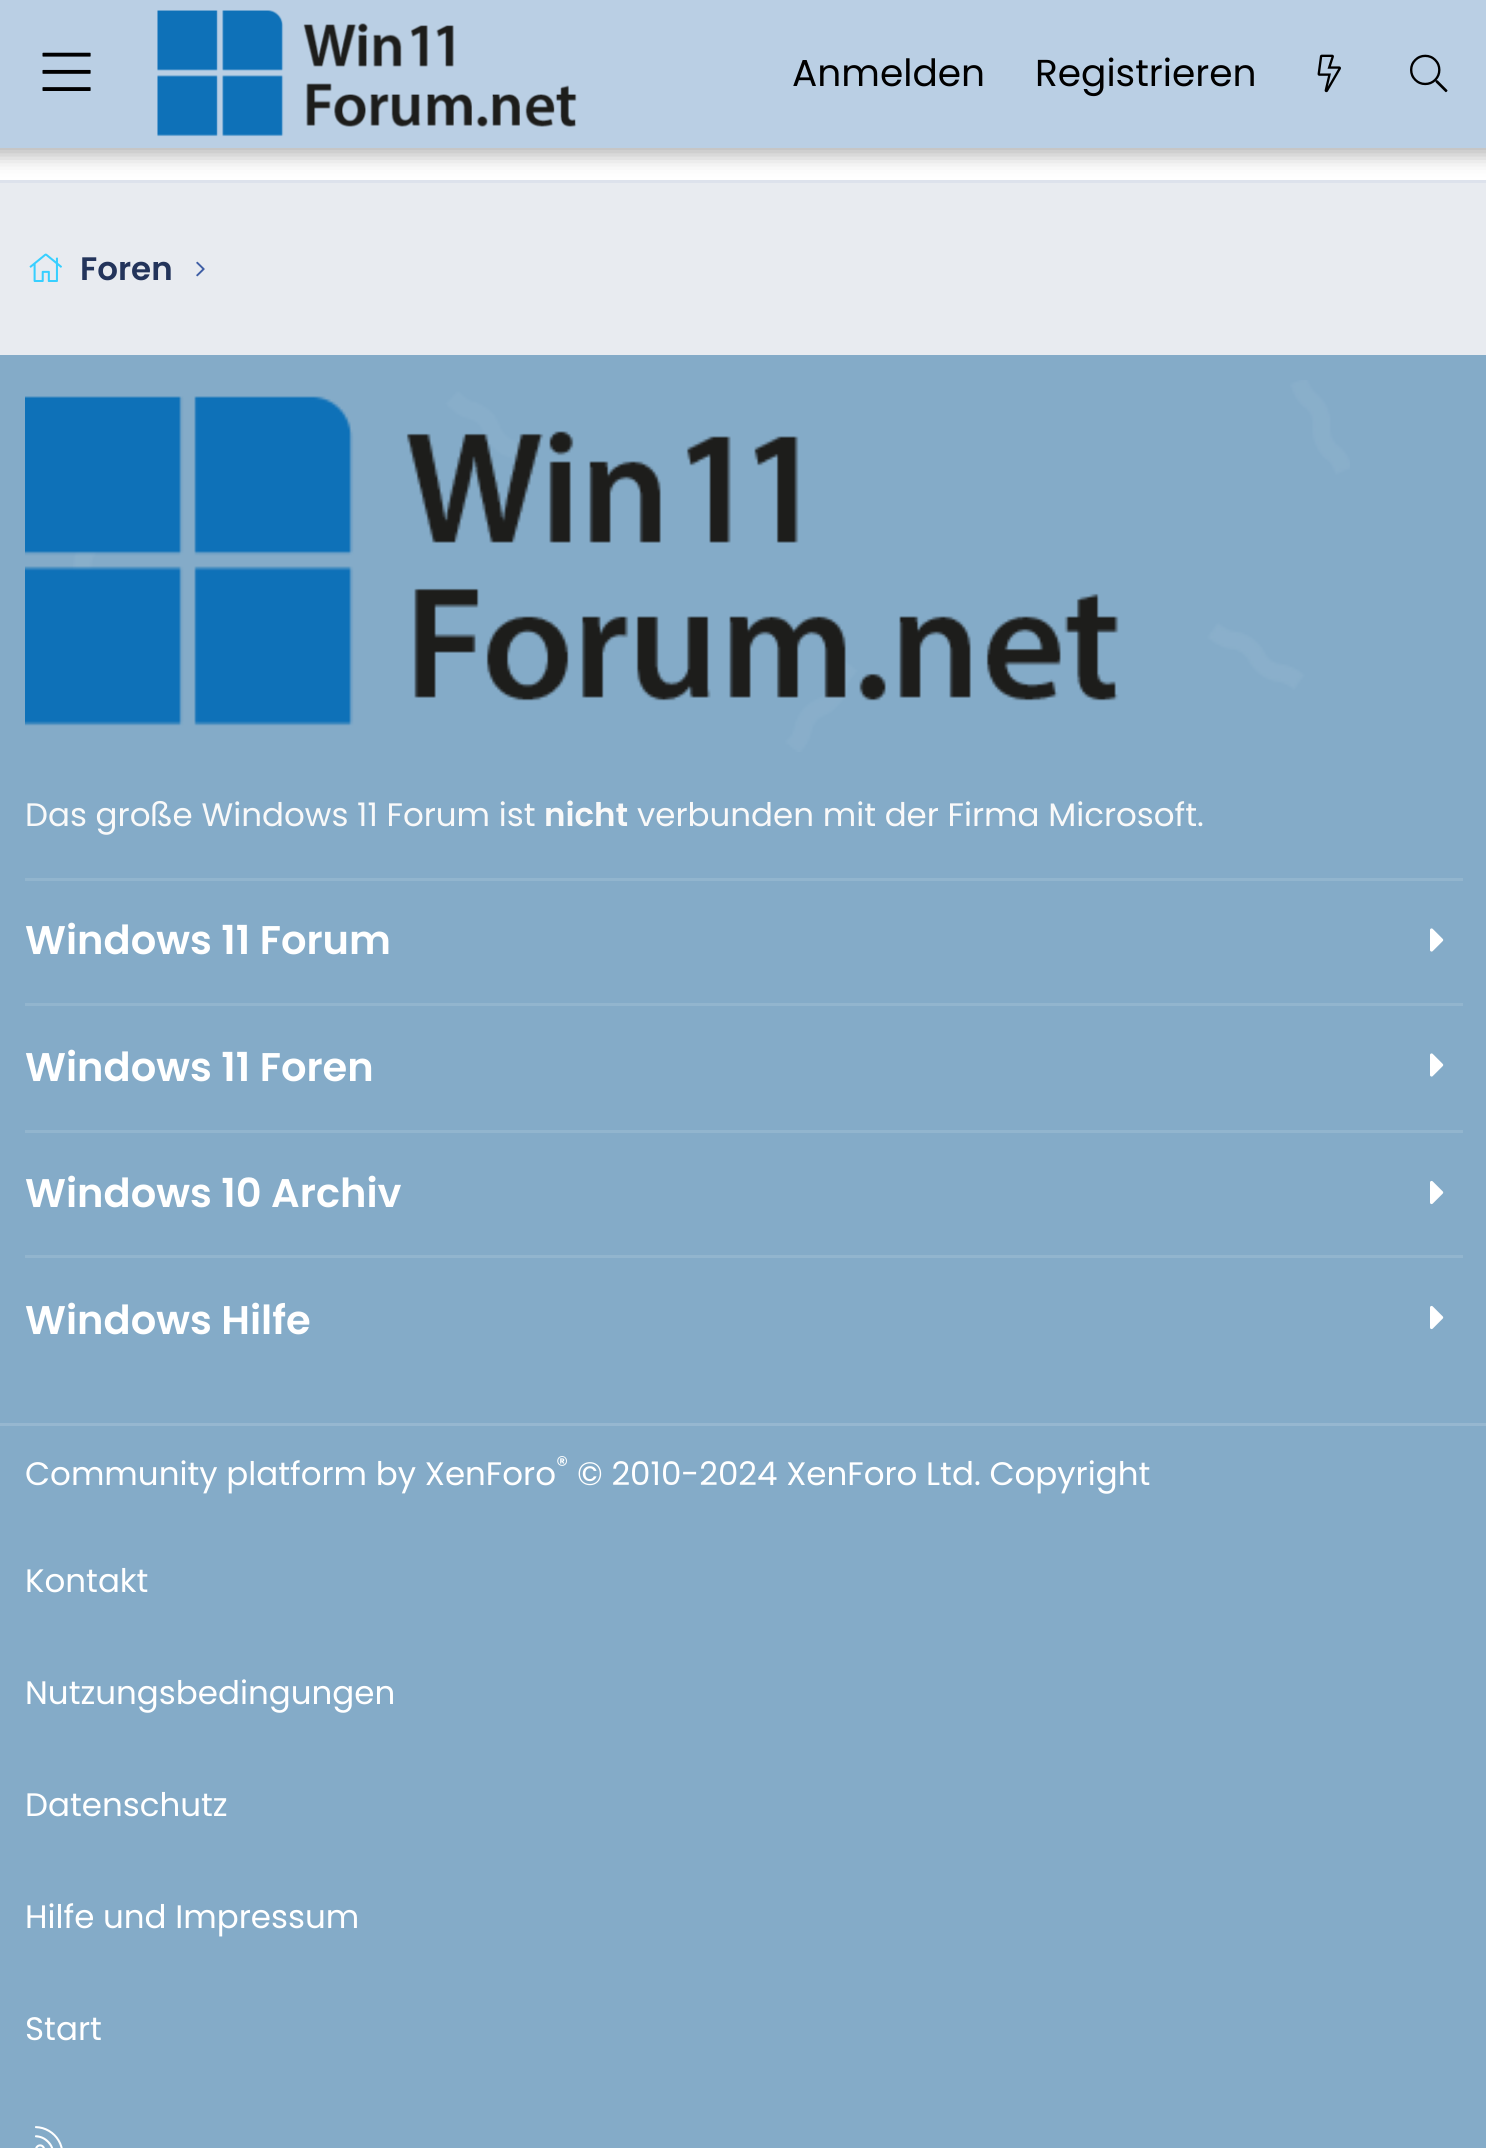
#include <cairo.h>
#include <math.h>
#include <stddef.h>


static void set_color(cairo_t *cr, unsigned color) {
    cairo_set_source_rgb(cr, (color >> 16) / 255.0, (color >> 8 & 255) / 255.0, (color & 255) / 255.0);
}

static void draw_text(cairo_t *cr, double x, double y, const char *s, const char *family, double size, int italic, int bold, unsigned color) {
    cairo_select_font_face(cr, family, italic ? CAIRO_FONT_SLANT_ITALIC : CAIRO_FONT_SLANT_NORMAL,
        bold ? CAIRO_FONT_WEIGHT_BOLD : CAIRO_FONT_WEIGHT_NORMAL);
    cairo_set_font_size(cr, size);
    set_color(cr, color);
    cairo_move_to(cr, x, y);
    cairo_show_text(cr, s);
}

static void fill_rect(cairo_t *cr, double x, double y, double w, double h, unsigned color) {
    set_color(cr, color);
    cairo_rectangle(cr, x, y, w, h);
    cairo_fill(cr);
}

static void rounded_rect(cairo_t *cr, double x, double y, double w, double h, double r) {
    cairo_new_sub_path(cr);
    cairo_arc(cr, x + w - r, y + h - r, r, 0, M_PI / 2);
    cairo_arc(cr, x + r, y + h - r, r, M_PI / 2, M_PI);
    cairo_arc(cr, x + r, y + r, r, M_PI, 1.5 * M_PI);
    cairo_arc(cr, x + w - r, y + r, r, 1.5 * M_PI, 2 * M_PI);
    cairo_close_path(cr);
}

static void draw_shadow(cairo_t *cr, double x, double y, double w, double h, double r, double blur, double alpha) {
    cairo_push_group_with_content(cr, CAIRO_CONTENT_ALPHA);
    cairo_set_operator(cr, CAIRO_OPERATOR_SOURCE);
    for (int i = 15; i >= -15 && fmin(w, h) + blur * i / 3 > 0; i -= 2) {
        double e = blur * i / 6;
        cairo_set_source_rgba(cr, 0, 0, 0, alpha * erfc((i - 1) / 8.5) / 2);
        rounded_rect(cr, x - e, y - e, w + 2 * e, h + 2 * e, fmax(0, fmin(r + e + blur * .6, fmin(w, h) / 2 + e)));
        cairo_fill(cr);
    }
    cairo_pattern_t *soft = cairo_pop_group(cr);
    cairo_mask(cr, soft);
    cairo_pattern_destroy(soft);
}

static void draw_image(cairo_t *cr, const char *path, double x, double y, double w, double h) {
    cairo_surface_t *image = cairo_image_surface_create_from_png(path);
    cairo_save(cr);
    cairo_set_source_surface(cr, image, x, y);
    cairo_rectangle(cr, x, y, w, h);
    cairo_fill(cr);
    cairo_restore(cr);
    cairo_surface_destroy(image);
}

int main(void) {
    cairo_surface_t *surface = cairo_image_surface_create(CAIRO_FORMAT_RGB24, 1486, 2148);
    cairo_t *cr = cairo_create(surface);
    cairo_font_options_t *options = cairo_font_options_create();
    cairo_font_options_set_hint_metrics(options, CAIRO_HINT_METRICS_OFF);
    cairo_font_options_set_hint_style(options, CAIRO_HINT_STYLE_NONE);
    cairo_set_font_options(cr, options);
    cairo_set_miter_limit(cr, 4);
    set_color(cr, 0xE8EBF0);
    cairo_paint(cr);
    fill_rect(cr, 0, 148, 1486, 32, 0xFFFFFF);
    fill_rect(cr, 0, 180, 1486, 3, 0xDDE2EC);
    set_color(cr, 0x000000);
    draw_shadow(cr, -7, -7, 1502, 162, 0, 10, 0.3);
    fill_rect(cr, 0, 0, 1486, 148, 0xBACFE4);
    draw_image(cr, "assets/img1.png", 42, 52, 49, 39);
    draw_image(cr, "assets/img2.png", 157, 10, 420, 127);
    draw_text(cr, 792, 86, "Anmelden", "Poppins", 37.5, 0, 0, 0x000000);
    draw_text(cr, 1035, 86, "Registrieren", "Poppins", 37.5, 0, 0, 0x000000);
    draw_image(cr, "assets/img3.png", 1317, 54, 24, 39);
    draw_image(cr, "assets/img4.png", 1410, 54, 38, 39);
    draw_image(cr, "assets/img5.png", 29, 253, 33, 29);
    draw_text(cr, 80, 280, "Foren", "Poppins SemiBold", 32.5, 0, 0, 0x23345B);
    draw_image(cr, "assets/img6.png", 196, 261, 9, 16);
    fill_rect(cr, 0, 355, 1486, 1068, 0x84ABC8);
    draw_image(cr, "assets/img7.png", 73, 380, 1277, 372);
    fill_rect(cr, 25, 878, 1438, 3, 0x92B5CE);
    draw_image(cr, "assets/img8.png", 25, 396, 1094, 330);
    draw_text(cr, 25, 826, "Das große Windows 11 Forum ist", "Poppins", 32.5, 0, 0, 0xF9F9F9);
    draw_text(cr, 544, 826, "nicht", "Poppins SemiBold", 32.5, 0, 0, 0xF9F9F9);
    draw_text(cr, 637, 826, "verbunden mit der Firma Microsoft.", "Poppins", 32.5, 0, 0, 0xF9F9F9);
    fill_rect(cr, 25, 1003, 1438, 3, 0x92B5CE);
    draw_text(cr, 25, 954, "Windows 11 Forum", "Poppins SemiBold", 40, 0, 0, 0xFFFFFF);
    draw_image(cr, "assets/img9.png", 1430, 928, 14, 24);
    fill_rect(cr, 25, 1130, 1438, 3, 0x92B5CE);
    draw_text(cr, 25, 1081, "Windows 11 Foren", "Poppins SemiBold", 40, 0, 0, 0xFFFFFF);
    draw_image(cr, "assets/img9.png", 1430, 1053, 14, 24);
    fill_rect(cr, 25, 1255, 1438, 3, 0x92B5CE);
    draw_text(cr, 25, 1207, "Windows 10 Archiv", "Poppins SemiBold", 40, 0, 0, 0xFFFFFF);
    draw_image(cr, "assets/img10.png", 1430, 1180, 14, 25);
    draw_text(cr, 25, 1334, "Windows Hilfe", "Poppins SemiBold", 40, 0, 0, 0xFFFFFF);
    draw_image(cr, "assets/img10.png", 1430, 1305, 14, 25);
    fill_rect(cr, 0, 1426, 1486, 722, 0x84ABC8);
    fill_rect(cr, 0, 1423, 1486, 3, 0x96B7D0);
    draw_text(cr, 25, 1485, "Community platform by XenForo", "Poppins", 32.5, 0, 0, 0xFFFFFF);
    draw_text(cr, 556, 1473, "®", "Poppins", 24, 0, 0, 0xFFFFFF);
    draw_text(cr, 577, 1485, "© 2010-2024 XenForo Ltd. Copyright", "Poppins", 32.5, 0, 0, 0xFFFFFF);
    draw_text(cr, 25, 1592, "Kontakt", "Poppins", 32.5, 0, 0, 0xFFFFFF);
    draw_text(cr, 25, 1704, "Nutzungsbedingungen", "Poppins", 32.5, 0, 0, 0xFFFFFF);
    draw_text(cr, 25, 1816, "Datenschutz", "Poppins", 32.5, 0, 0, 0xFFFFFF);
    draw_text(cr, 25, 1928, "Hilfe und Impressum", "Poppins", 32.5, 0, 0, 0xFFFFFF);
    draw_text(cr, 25, 2040, "Start", "Poppins", 32.5, 0, 0, 0xFFFFFF);
    draw_image(cr, "assets/img11.png", 35, 2126, 28, 22);
    cairo_surface_write_to_png(surface, "output.png");
    cairo_font_options_destroy(options);
    cairo_destroy(cr);
    cairo_surface_destroy(surface);
    return 0;
}
